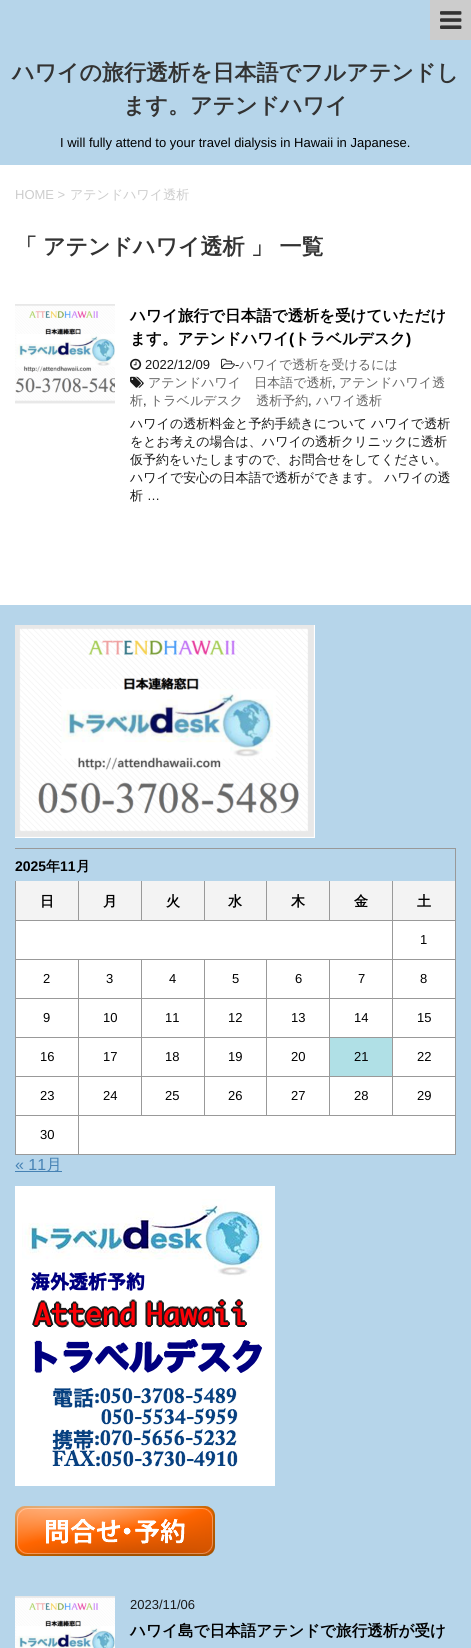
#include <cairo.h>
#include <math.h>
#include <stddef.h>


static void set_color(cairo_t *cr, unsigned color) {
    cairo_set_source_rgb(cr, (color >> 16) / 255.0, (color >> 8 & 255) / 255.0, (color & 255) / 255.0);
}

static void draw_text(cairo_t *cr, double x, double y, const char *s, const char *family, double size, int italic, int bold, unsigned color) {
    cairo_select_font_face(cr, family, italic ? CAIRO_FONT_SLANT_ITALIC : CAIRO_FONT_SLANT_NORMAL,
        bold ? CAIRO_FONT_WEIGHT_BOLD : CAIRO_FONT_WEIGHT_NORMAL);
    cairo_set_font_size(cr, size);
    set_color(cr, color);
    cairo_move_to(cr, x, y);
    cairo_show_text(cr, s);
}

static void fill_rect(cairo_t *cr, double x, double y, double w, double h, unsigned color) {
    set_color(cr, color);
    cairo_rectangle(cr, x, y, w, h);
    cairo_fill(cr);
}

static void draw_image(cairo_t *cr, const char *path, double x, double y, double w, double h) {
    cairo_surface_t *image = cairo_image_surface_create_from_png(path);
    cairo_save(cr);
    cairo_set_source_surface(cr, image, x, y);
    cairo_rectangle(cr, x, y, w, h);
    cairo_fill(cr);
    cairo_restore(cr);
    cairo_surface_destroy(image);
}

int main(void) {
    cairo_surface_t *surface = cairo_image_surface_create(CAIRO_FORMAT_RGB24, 471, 1648);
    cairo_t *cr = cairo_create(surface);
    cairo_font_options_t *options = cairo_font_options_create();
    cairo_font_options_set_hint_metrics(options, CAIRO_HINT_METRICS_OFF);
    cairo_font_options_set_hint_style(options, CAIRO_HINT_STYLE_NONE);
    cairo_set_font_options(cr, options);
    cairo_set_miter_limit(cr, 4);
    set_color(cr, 0xB6D5EA);
    cairo_paint(cr);
    fill_rect(cr, 430, 0, 41, 40, 0xCCCCCC);
    draw_image(cr, "assets/img1.png", 440, 11, 22, 18);
    draw_text(cr, 12, 80, "ハワイの旅行透析を日本語でフルアテンドし", "WenQuanYi Zen Hei", 22, 0, 1, 0x333333);
    draw_text(cr, 123, 113, "ます。アテンドハワイ", "WenQuanYi Zen Hei", 22, 0, 1, 0x333333);
    draw_text(cr, 60, 147, "I will fully attend to your travel dialysis in Hawaii in Japanese.", "Liberation Sans", 13, 0, 0, 0x000000);
    fill_rect(cr, 0, 165, 471, 440, 0xFFFFFF);
    draw_text(cr, 15, 199, "HOME >", "Liberation Sans", 13, 0, 0, 0xCCCCCC);
    draw_text(cr, 70, 199, "アテンドハワイ透析", "WenQuanYi Zen Hei Medium", 13, 0, 0, 0xCCCCCC);
    draw_text(cr, 15, 254, "「", "WenQuanYi Zen Hei", 22, 0, 1, 0x333333);
    draw_text(cr, 43, 254, "アテンドハワイ透析", "WenQuanYi Zen Hei", 22, 0, 1, 0x333333);
    draw_text(cr, 251, 254, "」 一覧", "WenQuanYi Zen Hei", 22, 0, 1, 0x333333);
    draw_image(cr, "assets/img2.png", 15, 304, 100, 100);
    draw_text(cr, 130, 321, "ハワイ旅行で日本語で透析を受けていただけ", "WenQuanYi Zen Hei", 15.6, 0, 1, 0x000000);
    draw_text(cr, 130, 344, "ます。アテンドハワイ", "WenQuanYi Zen Hei", 15.6, 0, 1, 0x000000);
    draw_text(cr, 289, 344, "(", "Liberation Sans", 15.6, 0, 1, 0x000000);
    draw_text(cr, 294, 344, "トラベルデスク", "WenQuanYi Zen Hei", 15.6, 0, 1, 0x000000);
    draw_text(cr, 406, 344, ")", "Liberation Sans", 15.6, 0, 1, 0x000000);
    draw_image(cr, "assets/img3.png", 221, 358, 14, 11);
    draw_text(cr, 235, 369, "-", "Liberation Sans", 13, 0, 0, 0x1A1A1A);
    draw_text(cr, 239, 369, "ハワイで透析を受けるには", "WenQuanYi Zen Hei Medium", 13, 0, 0, 0x666666);
    draw_image(cr, "assets/img4.png", 130, 376, 14, 12);
    draw_text(cr, 148, 387, "アテンドハワイ　日本語で透析", "WenQuanYi Zen Hei Medium", 13, 0, 0, 0x666666);
    draw_text(cr, 332, 387, ",", "Liberation Sans", 13, 0, 0, 0x1A1A1A);
    draw_text(cr, 339, 387, "アテンドハワイ透", "WenQuanYi Zen Hei Medium", 13, 0, 0, 0x666666);
    draw_text(cr, 130, 405, "析", "WenQuanYi Zen Hei Medium", 13, 0, 0, 0x666666);
    draw_text(cr, 143, 405, ",", "Liberation Sans", 13, 0, 0, 0x1A1A1A);
    draw_text(cr, 150, 405, "トラベルデスク　透析予約", "WenQuanYi Zen Hei Medium", 13, 0, 0, 0x666666);
    draw_text(cr, 308, 405, ",", "Liberation Sans", 13, 0, 0, 0x1A1A1A);
    draw_text(cr, 316, 405, "ハワイ透析", "WenQuanYi Zen Hei Medium", 13, 0, 0, 0x666666);
    draw_image(cr, "assets/img5.png", 130, 358, 12, 12);
    draw_text(cr, 145, 369, "2022/12/09", "Liberation Sans", 13, 0, 0, 0x1A1A1A);
    draw_text(cr, 130, 428, "ハワイの透析料金と予約手続きについて ハワイで透析", "WenQuanYi Zen Hei Medium", 13, 0, 0, 0x1A1A1A);
    draw_text(cr, 130, 446, "をとお考えの場合は、ハワイの透析クリニックに透析", "WenQuanYi Zen Hei Medium", 13, 0, 0, 0x1A1A1A);
    draw_text(cr, 130, 464, "仮予約をいたしますので、お問合せをしてください。", "WenQuanYi Zen Hei Medium", 13, 0, 0, 0x1A1A1A);
    draw_text(cr, 130, 482, "ハワイで安心の日本語で透析ができます。 ハワイの透", "WenQuanYi Zen Hei Medium", 13, 0, 0, 0x1A1A1A);
    draw_text(cr, 130, 500, "析", "WenQuanYi Zen Hei Medium", 13, 0, 0, 0x1A1A1A);
    draw_text(cr, 147, 500, "…", "Liberation Sans", 13, 0, 0, 0x1A1A1A);
    draw_image(cr, "assets/img6.png", 15, 625, 300, 213);
    fill_rect(cr, 15, 848, 441, 1, 0x999999);
    fill_rect(cr, 455, 848, 1, 307, 0x999999);
    draw_text(cr, 15, 871, "2025", "Liberation Sans", 14, 0, 1, 0x000000);
    draw_text(cr, 46, 871, "年", "WenQuanYi Zen Hei", 14, 0, 1, 0x000000);
    draw_text(cr, 60, 871, "11", "Liberation Sans", 14, 0, 1, 0x000000);
    draw_text(cr, 76, 871, "月", "WenQuanYi Zen Hei", 14, 0, 1, 0x000000);
    fill_rect(cr, 16, 881, 62, 39, 0xF3F3F3);
    fill_rect(cr, 392, 1115, 64, 1, 0x999999);
    fill_rect(cr, 392, 1076, 1, 40, 0x999999);
    fill_rect(cr, 392, 1076, 64, 1, 0x999999);
    fill_rect(cr, 392, 1037, 1, 40, 0x999999);
    fill_rect(cr, 392, 1037, 64, 1, 0x999999);
    fill_rect(cr, 392, 998, 1, 40, 0x999999);
    fill_rect(cr, 392, 998, 64, 1, 0x999999);
    fill_rect(cr, 392, 959, 1, 40, 0x999999);
    fill_rect(cr, 392, 959, 64, 1, 0x999999);
    fill_rect(cr, 392, 920, 1, 40, 0x999999);
    fill_rect(cr, 392, 920, 64, 1, 0x999999);
    fill_rect(cr, 392, 881, 1, 40, 0x999999);
    fill_rect(cr, 329, 920, 64, 1, 0x999999);
    fill_rect(cr, 329, 881, 1, 40, 0x999999);
    fill_rect(cr, 266, 920, 64, 1, 0x999999);
    fill_rect(cr, 266, 881, 1, 40, 0x999999);
    fill_rect(cr, 204, 920, 63, 1, 0x999999);
    fill_rect(cr, 204, 881, 1, 40, 0x999999);
    fill_rect(cr, 141, 920, 64, 1, 0x999999);
    fill_rect(cr, 141, 881, 1, 40, 0x999999);
    fill_rect(cr, 78, 920, 64, 1, 0x999999);
    fill_rect(cr, 78, 881, 1, 40, 0x999999);
    fill_rect(cr, 329, 1115, 64, 1, 0x999999);
    fill_rect(cr, 329, 1076, 1, 40, 0x999999);
    fill_rect(cr, 329, 1076, 64, 1, 0x999999);
    fill_rect(cr, 329, 1037, 1, 40, 0x999999);
    fill_rect(cr, 329, 1037, 64, 1, 0x999999);
    fill_rect(cr, 329, 998, 1, 40, 0x999999);
    fill_rect(cr, 329, 998, 64, 1, 0x999999);
    fill_rect(cr, 329, 959, 1, 40, 0x999999);
    fill_rect(cr, 266, 1115, 64, 1, 0x999999);
    fill_rect(cr, 266, 1076, 1, 40, 0x999999);
    fill_rect(cr, 266, 1076, 64, 1, 0x999999);
    fill_rect(cr, 266, 1037, 1, 40, 0x999999);
    fill_rect(cr, 266, 1037, 64, 1, 0x999999);
    fill_rect(cr, 266, 998, 1, 40, 0x999999);
    fill_rect(cr, 266, 998, 64, 1, 0x999999);
    fill_rect(cr, 266, 959, 1, 40, 0x999999);
    fill_rect(cr, 204, 1115, 63, 1, 0x999999);
    fill_rect(cr, 204, 1076, 1, 40, 0x999999);
    fill_rect(cr, 204, 1076, 63, 1, 0x999999);
    fill_rect(cr, 204, 1037, 1, 40, 0x999999);
    fill_rect(cr, 204, 1037, 63, 1, 0x999999);
    fill_rect(cr, 204, 998, 1, 40, 0x999999);
    fill_rect(cr, 204, 998, 63, 1, 0x999999);
    fill_rect(cr, 204, 959, 1, 40, 0x999999);
    fill_rect(cr, 141, 1115, 64, 1, 0x999999);
    fill_rect(cr, 141, 1076, 1, 40, 0x999999);
    fill_rect(cr, 141, 1076, 64, 1, 0x999999);
    fill_rect(cr, 141, 1037, 1, 40, 0x999999);
    fill_rect(cr, 141, 1037, 64, 1, 0x999999);
    fill_rect(cr, 141, 998, 1, 40, 0x999999);
    fill_rect(cr, 141, 998, 64, 1, 0x999999);
    fill_rect(cr, 141, 959, 1, 40, 0x999999);
    fill_rect(cr, 78, 1154, 378, 1, 0x999999);
    fill_rect(cr, 78, 1115, 1, 40, 0x999999);
    fill_rect(cr, 78, 1115, 64, 1, 0x999999);
    fill_rect(cr, 78, 1076, 1, 40, 0x999999);
    fill_rect(cr, 78, 1076, 64, 1, 0x999999);
    fill_rect(cr, 78, 1037, 1, 40, 0x999999);
    fill_rect(cr, 78, 1037, 64, 1, 0x999999);
    fill_rect(cr, 78, 998, 1, 40, 0x999999);
    fill_rect(cr, 78, 998, 64, 1, 0x999999);
    fill_rect(cr, 78, 959, 1, 40, 0x999999);
    fill_rect(cr, 15, 1154, 64, 1, 0x999999);
    fill_rect(cr, 15, 1115, 1, 40, 0x999999);
    fill_rect(cr, 15, 1115, 64, 1, 0x999999);
    fill_rect(cr, 15, 1076, 1, 40, 0x999999);
    fill_rect(cr, 15, 1076, 64, 1, 0x999999);
    fill_rect(cr, 15, 1037, 1, 40, 0x999999);
    fill_rect(cr, 15, 1037, 64, 1, 0x999999);
    fill_rect(cr, 15, 998, 1, 40, 0x999999);
    fill_rect(cr, 15, 998, 64, 1, 0x999999);
    fill_rect(cr, 15, 959, 1, 40, 0x999999);
    fill_rect(cr, 15, 959, 378, 1, 0x999999);
    fill_rect(cr, 15, 920, 1, 40, 0x999999);
    fill_rect(cr, 15, 920, 64, 1, 0x999999);
    fill_rect(cr, 15, 881, 1, 40, 0x999999);
    draw_text(cr, 40, 906, "日", "WenQuanYi Zen Hei", 14, 0, 1, 0x000000);
    fill_rect(cr, 79, 881, 62, 39, 0xF3F3F3);
    draw_text(cr, 103, 906, "月", "WenQuanYi Zen Hei", 14, 0, 1, 0x000000);
    fill_rect(cr, 142, 881, 62, 39, 0xF3F3F3);
    draw_text(cr, 166, 906, "火", "WenQuanYi Zen Hei", 14, 0, 1, 0x000000);
    fill_rect(cr, 205, 881, 61, 39, 0xF3F3F3);
    draw_text(cr, 228, 906, "水", "WenQuanYi Zen Hei", 14, 0, 1, 0x000000);
    fill_rect(cr, 267, 881, 62, 39, 0xF3F3F3);
    draw_text(cr, 291, 906, "木", "WenQuanYi Zen Hei", 14, 0, 1, 0x000000);
    fill_rect(cr, 330, 881, 62, 39, 0xF3F3F3);
    draw_text(cr, 354, 906, "金", "WenQuanYi Zen Hei", 14, 0, 1, 0x000000);
    fill_rect(cr, 393, 881, 62, 39, 0xF3F3F3);
    draw_text(cr, 417, 906, "土", "WenQuanYi Zen Hei", 14, 0, 1, 0x000000);
    fill_rect(cr, 16, 921, 376, 38, 0xFFFFFF);
    fill_rect(cr, 393, 921, 62, 38, 0xFFFFFF);
    draw_text(cr, 420, 944, "1", "Liberation Sans", 13, 0, 0, 0x000000);
    fill_rect(cr, 16, 960, 62, 38, 0xFFFFFF);
    draw_text(cr, 43, 983, "2", "Liberation Sans", 13, 0, 0, 0x000000);
    fill_rect(cr, 79, 960, 62, 38, 0xFFFFFF);
    draw_text(cr, 106, 983, "3", "Liberation Sans", 13, 0, 0, 0x000000);
    fill_rect(cr, 142, 960, 62, 38, 0xFFFFFF);
    draw_text(cr, 169, 983, "4", "Liberation Sans", 13, 0, 0, 0x000000);
    fill_rect(cr, 205, 960, 61, 38, 0xFFFFFF);
    draw_text(cr, 232, 983, "5", "Liberation Sans", 13, 0, 0, 0x000000);
    fill_rect(cr, 267, 960, 62, 38, 0xFFFFFF);
    draw_text(cr, 295, 983, "6", "Liberation Sans", 13, 0, 0, 0x000000);
    fill_rect(cr, 330, 960, 62, 38, 0xFFFFFF);
    draw_text(cr, 358, 983, "7", "Liberation Sans", 13, 0, 0, 0x000000);
    fill_rect(cr, 393, 960, 62, 38, 0xFFFFFF);
    draw_text(cr, 420, 983, "8", "Liberation Sans", 13, 0, 0, 0x000000);
    fill_rect(cr, 16, 999, 62, 38, 0xFFFFFF);
    draw_text(cr, 43, 1022, "9", "Liberation Sans", 13, 0, 0, 0x000000);
    fill_rect(cr, 79, 999, 62, 38, 0xFFFFFF);
    draw_text(cr, 103, 1022, "10", "Liberation Sans", 13, 0, 0, 0x000000);
    fill_rect(cr, 142, 999, 62, 38, 0xFFFFFF);
    draw_text(cr, 165, 1022, "11", "Liberation Sans", 13, 0, 0, 0x000000);
    fill_rect(cr, 205, 999, 61, 38, 0xFFFFFF);
    draw_text(cr, 228, 1022, "12", "Liberation Sans", 13, 0, 0, 0x000000);
    fill_rect(cr, 267, 999, 62, 38, 0xFFFFFF);
    draw_text(cr, 291, 1022, "13", "Liberation Sans", 13, 0, 0, 0x000000);
    fill_rect(cr, 330, 999, 62, 38, 0xFFFFFF);
    draw_text(cr, 354, 1022, "14", "Liberation Sans", 13, 0, 0, 0x000000);
    fill_rect(cr, 393, 999, 62, 38, 0xFFFFFF);
    draw_text(cr, 417, 1022, "15", "Liberation Sans", 13, 0, 0, 0x000000);
    fill_rect(cr, 16, 1038, 62, 38, 0xFFFFFF);
    draw_text(cr, 40, 1061, "16", "Liberation Sans", 13, 0, 0, 0x000000);
    fill_rect(cr, 79, 1038, 62, 38, 0xFFFFFF);
    draw_text(cr, 103, 1061, "17", "Liberation Sans", 13, 0, 0, 0x000000);
    fill_rect(cr, 142, 1038, 62, 38, 0xFFFFFF);
    draw_text(cr, 165, 1061, "18", "Liberation Sans", 13, 0, 0, 0x000000);
    fill_rect(cr, 205, 1038, 61, 38, 0xFFFFFF);
    draw_text(cr, 228, 1061, "19", "Liberation Sans", 13, 0, 0, 0x000000);
    fill_rect(cr, 267, 1038, 62, 38, 0xFFFFFF);
    draw_text(cr, 291, 1061, "20", "Liberation Sans", 13, 0, 0, 0x000000);
    fill_rect(cr, 330, 1038, 62, 38, 0xB0E0E6);
    draw_text(cr, 354, 1061, "21", "Liberation Sans", 13, 0, 0, 0x000000);
    fill_rect(cr, 393, 1038, 62, 38, 0xFFFFFF);
    draw_text(cr, 417, 1061, "22", "Liberation Sans", 13, 0, 0, 0x000000);
    fill_rect(cr, 16, 1077, 62, 38, 0xFFFFFF);
    draw_text(cr, 40, 1100, "23", "Liberation Sans", 13, 0, 0, 0x000000);
    fill_rect(cr, 79, 1077, 62, 38, 0xFFFFFF);
    draw_text(cr, 103, 1100, "24", "Liberation Sans", 13, 0, 0, 0x000000);
    fill_rect(cr, 142, 1077, 62, 38, 0xFFFFFF);
    draw_text(cr, 165, 1100, "25", "Liberation Sans", 13, 0, 0, 0x000000);
    fill_rect(cr, 205, 1077, 61, 38, 0xFFFFFF);
    draw_text(cr, 228, 1100, "26", "Liberation Sans", 13, 0, 0, 0x000000);
    fill_rect(cr, 267, 1077, 62, 38, 0xFFFFFF);
    draw_text(cr, 291, 1100, "27", "Liberation Sans", 13, 0, 0, 0x000000);
    fill_rect(cr, 330, 1077, 62, 38, 0xFFFFFF);
    draw_text(cr, 354, 1100, "28", "Liberation Sans", 13, 0, 0, 0x000000);
    fill_rect(cr, 393, 1077, 62, 38, 0xFFFFFF);
    draw_text(cr, 417, 1100, "29", "Liberation Sans", 13, 0, 0, 0x000000);
    fill_rect(cr, 16, 1116, 62, 38, 0xFFFFFF);
    draw_text(cr, 40, 1139, "30", "Liberation Sans", 13, 0, 0, 0x000000);
    fill_rect(cr, 79, 1116, 376, 38, 0xFFFFFF);
    draw_text(cr, 15, 1170, "« 11", "Liberation Sans", 16, 0, 0, 0x4682B4);
    fill_rect(cr, 15, 1171, 47, 1, 0x4682B4);
    draw_text(cr, 46, 1170, "月", "WenQuanYi Zen Hei Medium", 16, 0, 0, 0x4682B4);
    draw_image(cr, "assets/img7.png", 15, 1186, 260, 300);
    draw_image(cr, "assets/img8.png", 15, 1506, 200, 50);
    draw_image(cr, "assets/img9.png", 15, 1596, 100, 52);
    draw_text(cr, 130, 1609, "2023/11/06", "Liberation Sans", 13, 0, 0, 0x1A1A1A);
    draw_text(cr, 130, 1636, "ハワイ島で日本語アテンドで旅行透析が受け", "WenQuanYi Zen Hei", 15.6, 0, 1, 0x000000);
    cairo_surface_write_to_png(surface, "output.png");
    cairo_font_options_destroy(options);
    cairo_destroy(cr);
    cairo_surface_destroy(surface);
    return 0;
}
